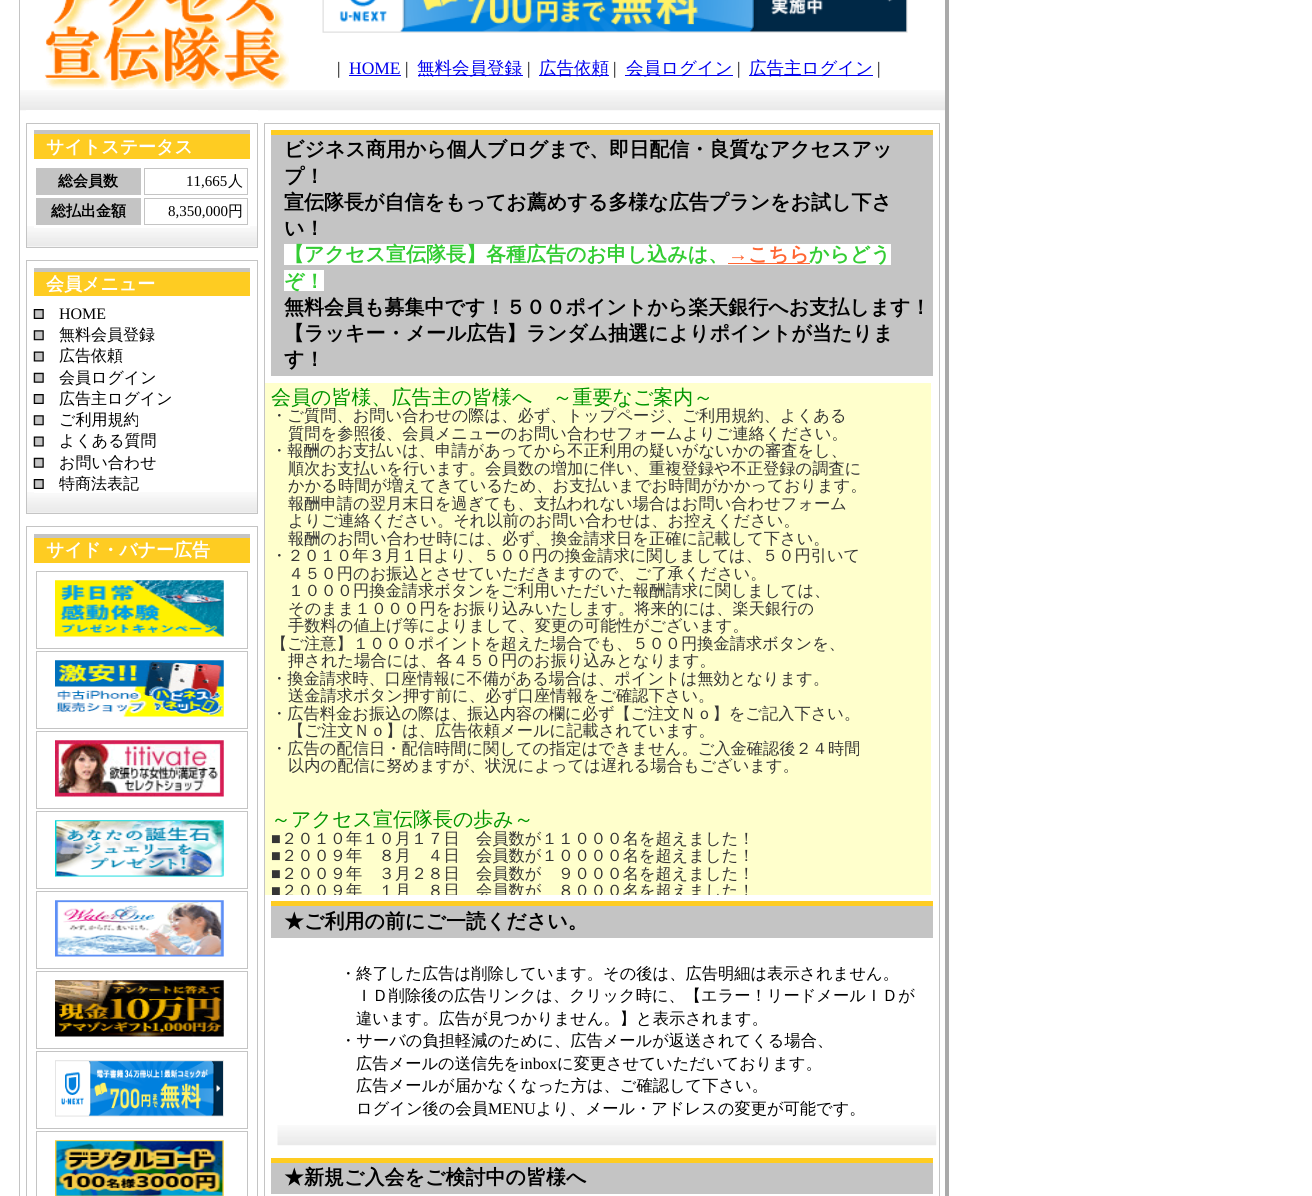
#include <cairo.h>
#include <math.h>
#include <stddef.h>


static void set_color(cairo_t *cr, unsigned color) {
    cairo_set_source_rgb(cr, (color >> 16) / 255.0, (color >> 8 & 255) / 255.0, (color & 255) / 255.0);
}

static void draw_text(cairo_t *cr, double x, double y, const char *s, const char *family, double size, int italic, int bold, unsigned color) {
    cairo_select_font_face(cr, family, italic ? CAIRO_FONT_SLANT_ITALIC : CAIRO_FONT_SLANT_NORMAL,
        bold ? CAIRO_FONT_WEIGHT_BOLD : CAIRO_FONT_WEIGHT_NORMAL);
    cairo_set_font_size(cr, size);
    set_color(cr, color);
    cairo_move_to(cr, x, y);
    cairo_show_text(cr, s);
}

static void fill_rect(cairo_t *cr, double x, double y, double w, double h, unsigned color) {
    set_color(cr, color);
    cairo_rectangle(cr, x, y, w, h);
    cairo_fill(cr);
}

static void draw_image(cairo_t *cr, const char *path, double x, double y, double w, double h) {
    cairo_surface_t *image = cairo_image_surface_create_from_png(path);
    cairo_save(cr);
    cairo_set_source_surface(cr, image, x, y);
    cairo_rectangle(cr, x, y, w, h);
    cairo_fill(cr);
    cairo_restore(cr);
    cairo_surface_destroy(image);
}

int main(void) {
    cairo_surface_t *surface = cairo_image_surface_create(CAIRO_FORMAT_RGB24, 1312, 1196);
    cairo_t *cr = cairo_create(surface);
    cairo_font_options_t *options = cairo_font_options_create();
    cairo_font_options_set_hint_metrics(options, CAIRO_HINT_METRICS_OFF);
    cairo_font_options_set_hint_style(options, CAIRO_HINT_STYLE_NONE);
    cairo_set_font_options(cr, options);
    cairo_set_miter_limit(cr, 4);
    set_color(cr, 0xFFFFFF);
    cairo_paint(cr);
    set_color(cr, 0xAAAAAA);
    cairo_new_path(cr);
    cairo_move_to(cr, 949, -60);
    cairo_line_to(cr, 949, 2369);
    cairo_line_to(cr, 945, 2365);
    cairo_line_to(cr, 945, -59);
    cairo_close_path(cr);
    cairo_fill(cr);
    set_color(cr, 0xC4C4C4);
    cairo_new_path(cr);
    cairo_move_to(cr, 19, 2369);
    cairo_line_to(cr, 19, -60);
    cairo_line_to(cr, 20, -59);
    cairo_line_to(cr, 20, 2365);
    cairo_close_path(cr);
    cairo_fill(cr);
    draw_image(cr, "assets/img1.png", 20, 90, 925, 21);
    draw_image(cr, "assets/img2.png", 44, 0, 246, 89);
    draw_image(cr, "assets/img3.png", 322, 0, 586, 33);
    draw_text(cr, 337, 74, "|", "Liberation Serif", 17.5, 0, 0, 0x000000);
    draw_text(cr, 349, 74, "HOME", "Liberation Serif", 17.5, 0, 0, 0x0000EE);
    fill_rect(cr, 349, 75, 52, 1, 0x0000EE);
    draw_text(cr, 405, 74, "|", "Liberation Serif", 17.5, 0, 0, 0x000000);
    fill_rect(cr, 418, 75, 105, 1, 0x0000EE);
    draw_text(cr, 417, 74, "無料会員登録", "WenQuanYi Zen Hei Medium", 17.5, 0, 0, 0x0000EE);
    draw_text(cr, 527, 74, "|", "Liberation Serif", 17.5, 0, 0, 0x000000);
    fill_rect(cr, 539, 75, 70, 1, 0x0000EE);
    draw_text(cr, 539, 74, "広告依頼", "WenQuanYi Zen Hei Medium", 17.5, 0, 0, 0x0000EE);
    draw_text(cr, 613, 74, "|", "Liberation Serif", 17.5, 0, 0, 0x000000);
    fill_rect(cr, 625, 75, 108, 1, 0x0000EE);
    draw_text(cr, 626, 74, "会員ログイン", "WenQuanYi Zen Hei Medium", 17.5, 0, 0, 0x0000EE);
    draw_text(cr, 737, 74, "|", "Liberation Serif", 17.5, 0, 0, 0x000000);
    fill_rect(cr, 749, 75, 124, 1, 0x0000EE);
    draw_text(cr, 749, 74, "広告主ログイン", "WenQuanYi Zen Hei Medium", 17.5, 0, 0, 0x0000EE);
    draw_text(cr, 877, 74, "|", "Liberation Serif", 17.5, 0, 0, 0x000000);
    fill_rect(cr, 26, 110, 232, 1, 0xFFFFFF);
    draw_image(cr, "assets/img4.png", 27, 226, 230, 21);
    cairo_rectangle(cr, 26.5, 123.5, 231, 124);
    set_color(cr, 0xC4C4C4);
    cairo_set_line_width(cr, 1);
    cairo_stroke(cr);
    fill_rect(cr, 34, 134, 216, 25, 0xFECC22);
    fill_rect(cr, 34, 130, 216, 4, 0xC4C4C4);
    draw_text(cr, 46, 153, "サイトステータス", "WenQuanYi Zen Hei", 18, 0, 1, 0xFFFFFF);
    fill_rect(cr, 34, 226, 216, 2, 0xFFFFFF);
    fill_rect(cr, 36, 168, 105, 27, 0xC4C4C4);
    draw_text(cr, 58, 186, "総会員数", "WenQuanYi Zen Hei", 15, 0, 1, 0x000000);
    cairo_rectangle(cr, 144.5, 168.5, 103, 26);
    set_color(cr, 0xC4C4C4);
    cairo_stroke(cr);
    draw_text(cr, 186, 186, "11,665", "Liberation Serif", 15, 0, 0, 0x000000);
    draw_text(cr, 228, 186, "人", "WenQuanYi Zen Hei Medium", 15, 0, 0, 0x000000);
    fill_rect(cr, 36, 198, 105, 27, 0xC4C4C4);
    draw_text(cr, 51, 216, "総払出金額", "WenQuanYi Zen Hei", 15, 0, 1, 0x000000);
    cairo_rectangle(cr, 144.5, 198.5, 103, 26);
    set_color(cr, 0xC4C4C4);
    cairo_stroke(cr);
    draw_text(cr, 168, 216, "8,350,000", "Liberation Serif", 15, 0, 0, 0x000000);
    draw_text(cr, 228, 216, "円", "WenQuanYi Zen Hei Medium", 15, 0, 0, 0x000000);
    draw_image(cr, "assets/img5.png", 27, 492, 230, 21);
    cairo_rectangle(cr, 26.5, 260.5, 231, 253);
    set_color(cr, 0xC4C4C4);
    cairo_stroke(cr);
    fill_rect(cr, 34, 272, 216, 24, 0xFECC22);
    fill_rect(cr, 34, 268, 216, 4, 0xC4C4C4);
    draw_text(cr, 46, 290, "会員メニュー", "WenQuanYi Zen Hei", 18, 0, 1, 0xFFFFFF);
    draw_image(cr, "assets/img6.png", 33, 309, 11, 10);
    draw_text(cr, 59, 319, "HOME", "Liberation Serif", 16, 0, 0, 0x000000);
    draw_image(cr, "assets/img7.png", 33, 330, 11, 11);
    draw_text(cr, 59, 340, "無料会員登録", "WenQuanYi Zen Hei Medium", 16, 0, 0, 0x000000);
    draw_image(cr, "assets/img8.png", 33, 351, 11, 11);
    draw_text(cr, 59, 361, "広告依頼", "WenQuanYi Zen Hei Medium", 16, 0, 0, 0x000000);
    draw_image(cr, "assets/img9.png", 33, 372, 11, 11);
    draw_text(cr, 59, 383, "会員ログイン", "WenQuanYi Zen Hei Medium", 16, 0, 0, 0x000000);
    draw_image(cr, "assets/img6.png", 33, 394, 11, 10);
    draw_text(cr, 59, 404, "広告主ログイン", "WenQuanYi Zen Hei Medium", 16, 0, 0, 0x000000);
    draw_image(cr, "assets/img7.png", 33, 415, 11, 11);
    draw_text(cr, 59, 425, "ご利用規約", "WenQuanYi Zen Hei Medium", 16, 0, 0, 0x000000);
    draw_image(cr, "assets/img8.png", 33, 436, 11, 11);
    draw_text(cr, 59, 446, "よくある質問", "WenQuanYi Zen Hei Medium", 16, 0, 0, 0x000000);
    draw_image(cr, "assets/img9.png", 33, 457, 11, 11);
    draw_text(cr, 59, 468, "お問い合わせ", "WenQuanYi Zen Hei Medium", 16, 0, 0, 0x000000);
    draw_image(cr, "assets/img6.png", 33, 479, 11, 10);
    draw_text(cr, 59, 489, "特商法表記", "WenQuanYi Zen Hei Medium", 16, 0, 0, 0x000000);
    fill_rect(cr, 34, 492, 105, 1, 0xFFFFFF);
    cairo_rectangle(cr, 26.5, 526.5, 231, 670);
    set_color(cr, 0xC4C4C4);
    cairo_stroke(cr);
    fill_rect(cr, 34, 538, 216, 25, 0xFECC22);
    fill_rect(cr, 34, 534, 216, 4, 0xC4C4C4);
    draw_text(cr, 46, 556, "サイド・バナー広告", "WenQuanYi Zen Hei", 18, 0, 1, 0xFFFFFF);
    cairo_rectangle(cr, 36.5, 571.5, 211, 77);
    set_color(cr, 0xC4C4C4);
    cairo_stroke(cr);
    draw_image(cr, "assets/img10.png", 55, 580, 169, 57);
    cairo_rectangle(cr, 36.5, 651.5, 211, 77);
    cairo_stroke(cr);
    draw_image(cr, "assets/img11.png", 55, 660, 169, 57);
    cairo_rectangle(cr, 36.5, 731.5, 211, 77);
    cairo_stroke(cr);
    draw_image(cr, "assets/img12.png", 55, 740, 169, 57);
    cairo_rectangle(cr, 36.5, 811.5, 211, 77);
    cairo_stroke(cr);
    draw_image(cr, "assets/img13.png", 55, 820, 169, 57);
    cairo_rectangle(cr, 36.5, 891.5, 211, 77);
    cairo_stroke(cr);
    draw_image(cr, "assets/img14.png", 55, 900, 169, 57);
    cairo_rectangle(cr, 36.5, 971.5, 211, 77);
    cairo_stroke(cr);
    draw_image(cr, "assets/img15.png", 55, 980, 169, 57);
    cairo_rectangle(cr, 36.5, 1051.5, 211, 77);
    cairo_stroke(cr);
    draw_image(cr, "assets/img16.png", 55, 1060, 169, 57);
    cairo_rectangle(cr, 36.5, 1131.5, 211, 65);
    cairo_stroke(cr);
    draw_image(cr, "assets/img17.png", 55, 1140, 169, 56);
    cairo_rectangle(cr, 264.5, 123.5, 675, 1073);
    cairo_stroke(cr);
    fill_rect(cr, 271, 135, 662, 241, 0xC4C4C4);
    fill_rect(cr, 271, 130, 662, 5, 0xFECC22);
    draw_text(cr, 284, 156, "ビジネス商用から個人ブログまで、即日配信・良質なアクセスアッ", "WenQuanYi Zen Hei", 20, 0, 1, 0x000000);
    draw_text(cr, 284, 183, "プ！", "WenQuanYi Zen Hei", 20, 0, 1, 0x000000);
    draw_text(cr, 284, 209, "宣伝隊長が自信をもってお薦めする多様な広告プランをお試し下さ", "WenQuanYi Zen Hei", 20, 0, 1, 0x000000);
    draw_text(cr, 284, 235, "い！", "WenQuanYi Zen Hei", 20, 0, 1, 0x000000);
    fill_rect(cr, 284, 244, 607, 21, 0xFFFFFF);
    draw_text(cr, 284, 261, "【アクセス宣伝隊長】各種広告のお申し込みは、", "WenQuanYi Zen Hei", 20, 0, 1, 0x33CC33);
    draw_text(cr, 728, 261, "→", "Liberation Serif", 20, 0, 1, 0xFF6633);
    fill_rect(cr, 728, 263, 82, 1, 0xFF6633);
    draw_text(cr, 748, 261, "こちら", "WenQuanYi Zen Hei", 20, 0, 1, 0xFF6633);
    draw_text(cr, 809, 261, "からどう", "WenQuanYi Zen Hei", 20, 0, 1, 0x33CC33);
    fill_rect(cr, 284, 270, 40, 21, 0xFFFFFF);
    draw_text(cr, 284, 288, "ぞ！", "WenQuanYi Zen Hei", 20, 0, 1, 0x33CC33);
    draw_text(cr, 284, 314, "無料会員も募集中です！５００ポイントから楽天銀行へお支払します！", "WenQuanYi Zen Hei", 20, 0, 1, 0x000000);
    draw_text(cr, 284, 340, "【ラッキー・メール広告】ランダム抽選によりポイントが当たりま", "WenQuanYi Zen Hei", 20, 0, 1, 0x000000);
    draw_text(cr, 284, 366, "す！", "WenQuanYi Zen Hei", 20, 0, 1, 0x000000);
    fill_rect(cr, 265, 383, 666, 512, 0xFFFFCC);
    draw_text(cr, 271, 404, "会員の皆様、広告主の皆様へ　～重要なご案内～", "WenQuanYi Zen Hei Medium", 20, 0, 0, 0x009500);
    draw_text(cr, 271, 421, "・ご質問、お問い合わせの際は、必ず、トップページ、ご利用規約、よくある", "WenQuanYi Zen Hei Medium", 16.25, 0, 0, 0x353535);
    draw_text(cr, 288, 439, "質問を参照後、会員メニューのお問い合わせフォームよりご連絡ください。", "WenQuanYi Zen Hei Medium", 16.25, 0, 0, 0x353535);
    draw_text(cr, 271, 456, "・報酬のお支払いは、申請があってから不正利用の疑いがないかの審査をし、", "WenQuanYi Zen Hei Medium", 16.25, 0, 0, 0x353535);
    draw_text(cr, 288, 474, "順次お支払いを行います。会員数の増加に伴い、重複登録や不正登録の調査に", "WenQuanYi Zen Hei Medium", 16.25, 0, 0, 0x353535);
    draw_text(cr, 288, 491, "かかる時間が増えてきているため、お支払いまでお時間がかかっております。", "WenQuanYi Zen Hei Medium", 16.25, 0, 0, 0x353535);
    draw_text(cr, 288, 509, "報酬申請の翌月末日を過ぎても、支払われない場合はお問い合わせフォーム", "WenQuanYi Zen Hei Medium", 16.25, 0, 0, 0x353535);
    draw_text(cr, 288, 526, "よりご連絡ください。それ以前のお問い合わせは、お控えください。", "WenQuanYi Zen Hei Medium", 16.25, 0, 0, 0x353535);
    draw_text(cr, 288, 544, "報酬のお問い合わせ時には、必ず、換金請求日を正確に記載して下さい。", "WenQuanYi Zen Hei Medium", 16.25, 0, 0, 0x353535);
    draw_text(cr, 271, 561, "・２０１０年３月１日より、５００円の換金請求に関しましては、５０円引いて", "WenQuanYi Zen Hei Medium", 16.25, 0, 0, 0x353535);
    draw_text(cr, 288, 579, "４５０円のお振込とさせていただきますので、ご了承ください。", "WenQuanYi Zen Hei Medium", 16.25, 0, 0, 0x353535);
    draw_text(cr, 288, 596, "１０００円換金請求ボタンをご利用いただいた報酬請求に関しましては、", "WenQuanYi Zen Hei Medium", 16.25, 0, 0, 0x353535);
    draw_text(cr, 288, 614, "そのまま１０００円をお振り込みいたします。将来的には、楽天銀行の", "WenQuanYi Zen Hei Medium", 16.25, 0, 0, 0x353535);
    draw_text(cr, 288, 631, "手数料の値上げ等によりまして、変更の可能性がございます。", "WenQuanYi Zen Hei Medium", 16.25, 0, 0, 0x353535);
    draw_text(cr, 271, 649, "【ご注意】１０００ポイントを超えた場合でも、５００円換金請求ボタンを、", "WenQuanYi Zen Hei Medium", 16.25, 0, 0, 0x353535);
    draw_text(cr, 288, 666, "押された場合には、各４５０円のお振り込みとなります。", "WenQuanYi Zen Hei Medium", 16.25, 0, 0, 0x353535);
    draw_text(cr, 271, 684, "・換金請求時、口座情報に不備がある場合は、ポイントは無効となります。", "WenQuanYi Zen Hei Medium", 16.25, 0, 0, 0x353535);
    draw_text(cr, 288, 701, "送金請求ボタン押す前に、必ず口座情報をご確認下さい。", "WenQuanYi Zen Hei Medium", 16.25, 0, 0, 0x353535);
    draw_text(cr, 271, 719, "・広告料金お振込の際は、振込内容の欄に必ず【ご注文Ｎｏ】をご記入下さい。", "WenQuanYi Zen Hei Medium", 16.25, 0, 0, 0x353535);
    draw_text(cr, 288, 736, "【ご注文Ｎｏ】は、広告依頼メールに記載されています。", "WenQuanYi Zen Hei Medium", 16.25, 0, 0, 0x353535);
    draw_text(cr, 271, 754, "・広告の配信日・配信時間に関しての指定はできません。ご入金確認後２４時間", "WenQuanYi Zen Hei Medium", 16.25, 0, 0, 0x353535);
    draw_text(cr, 288, 771, "以内の配信に努めますが、状況によっては遅れる場合もございます。", "WenQuanYi Zen Hei Medium", 16.25, 0, 0, 0x353535);
    draw_text(cr, 271, 826, "～アクセス宣伝隊長の歩み～", "WenQuanYi Zen Hei Medium", 20, 0, 0, 0x009500);
    draw_text(cr, 271, 844, "■", "Liberation Serif", 16.25, 0, 0, 0x353535);
    draw_text(cr, 281, 844, "２０１０年１０月１７日　会員数が１１０００名を超えました！", "WenQuanYi Zen Hei Medium", 16.25, 0, 0, 0x353535);
    draw_text(cr, 271, 861, "■", "Liberation Serif", 16.25, 0, 0, 0x353535);
    draw_text(cr, 281, 861, "２００９年　８月　４日　会員数が１００００名を超えました！", "WenQuanYi Zen Hei Medium", 16.25, 0, 0, 0x353535);
    draw_text(cr, 271, 879, "■", "Liberation Serif", 16.25, 0, 0, 0x353535);
    draw_text(cr, 281, 879, "２００９年　３月２８日　会員数が　９０００名を超えました！", "WenQuanYi Zen Hei Medium", 16.25, 0, 0, 0x353535);
    cairo_save(cr);
    cairo_rectangle(cr, 265, 383, 666, 512);
    cairo_clip(cr);
    draw_text(cr, 271, 896, "■", "Liberation Serif", 16.25, 0, 0, 0x353535);
    draw_text(cr, 281, 896, "２００９年　１月　８日　会員数が　８０００名を超えました！", "WenQuanYi Zen Hei Medium", 16.25, 0, 0, 0x353535);
    cairo_restore(cr);
    fill_rect(cr, 271, 906, 662, 32, 0xC4C4C4);
    fill_rect(cr, 271, 901, 662, 5, 0xFECC22);
    draw_text(cr, 284, 928, "★ご利用の前にご一読ください。", "WenQuanYi Zen Hei", 20, 0, 1, 0x000000);
    draw_image(cr, "assets/img18.png", 277, 1125, 660, 21);
    draw_text(cr, 340, 979, "・終了した広告は削除しています。その後は、広告明細は表示されません。", "WenQuanYi Zen Hei Medium", 16.25, 0, 0, 0x000000);
    draw_text(cr, 356, 1001, "ＩＤ削除後の広告リンクは、クリック時に、【エラー！リードメールＩＤが", "WenQuanYi Zen Hei Medium", 16.25, 0, 0, 0x000000);
    draw_text(cr, 356, 1024, "違います。広告が見つかりません。】と表示されます。", "WenQuanYi Zen Hei Medium", 16.25, 0, 0, 0x000000);
    draw_text(cr, 340, 1046, "・サーバの負担軽減のために、広告メールが返送されてくる場合、", "WenQuanYi Zen Hei Medium", 16.25, 0, 0, 0x000000);
    draw_text(cr, 356, 1069, "広告メールの送信先を", "WenQuanYi Zen Hei Medium", 16.25, 0, 0, 0x000000);
    draw_text(cr, 520, 1069, "inbox", "Liberation Serif", 16.25, 0, 0, 0x000000);
    draw_text(cr, 557, 1069, "に変更させていただいております。", "WenQuanYi Zen Hei Medium", 16.25, 0, 0, 0x000000);
    draw_text(cr, 356, 1091, "広告メールが届かなくなった方は、ご確認して下さい。", "WenQuanYi Zen Hei Medium", 16.25, 0, 0, 0x000000);
    draw_text(cr, 356, 1114, "ログイン後の会員", "WenQuanYi Zen Hei Medium", 16.25, 0, 0, 0x000000);
    draw_text(cr, 488, 1114, "MENU", "Liberation Serif", 16.25, 0, 0, 0x000000);
    draw_text(cr, 536, 1114, "より、メール・アドレスの変更が可能です。", "WenQuanYi Zen Hei Medium", 16.25, 0, 0, 0x000000);
    fill_rect(cr, 271, 1163, 662, 31, 0xC4C4C4);
    fill_rect(cr, 271, 1158, 662, 5, 0xFECC22);
    draw_text(cr, 284, 1184, "★新規ご入会をご検討中の皆様へ", "WenQuanYi Zen Hei", 20, 0, 1, 0x000000);
    cairo_surface_write_to_png(surface, "output.png");
    cairo_font_options_destroy(options);
    cairo_destroy(cr);
    cairo_surface_destroy(surface);
    return 0;
}
